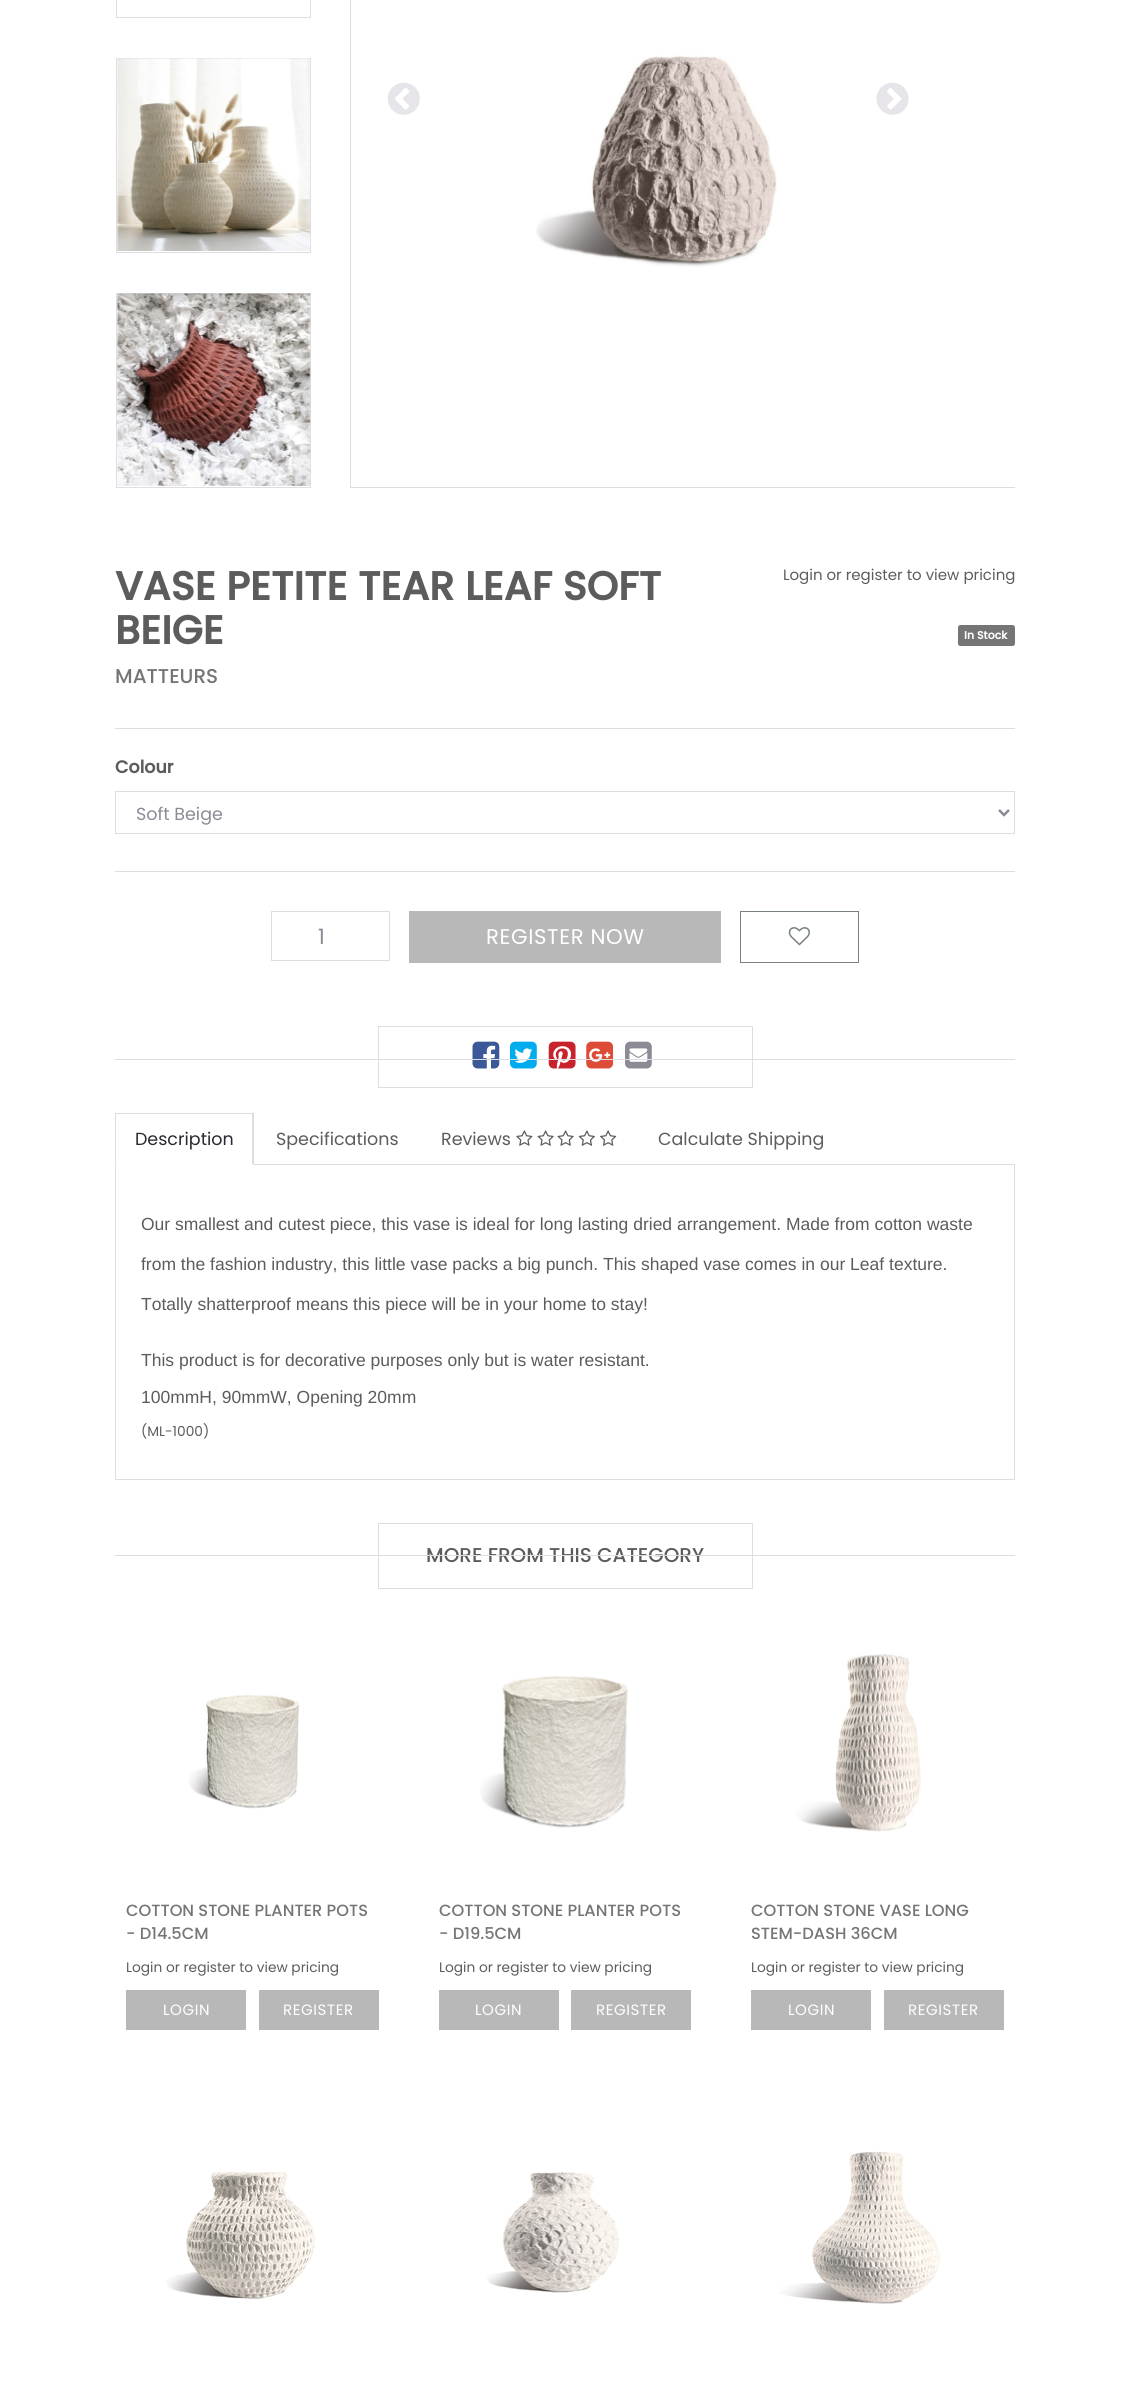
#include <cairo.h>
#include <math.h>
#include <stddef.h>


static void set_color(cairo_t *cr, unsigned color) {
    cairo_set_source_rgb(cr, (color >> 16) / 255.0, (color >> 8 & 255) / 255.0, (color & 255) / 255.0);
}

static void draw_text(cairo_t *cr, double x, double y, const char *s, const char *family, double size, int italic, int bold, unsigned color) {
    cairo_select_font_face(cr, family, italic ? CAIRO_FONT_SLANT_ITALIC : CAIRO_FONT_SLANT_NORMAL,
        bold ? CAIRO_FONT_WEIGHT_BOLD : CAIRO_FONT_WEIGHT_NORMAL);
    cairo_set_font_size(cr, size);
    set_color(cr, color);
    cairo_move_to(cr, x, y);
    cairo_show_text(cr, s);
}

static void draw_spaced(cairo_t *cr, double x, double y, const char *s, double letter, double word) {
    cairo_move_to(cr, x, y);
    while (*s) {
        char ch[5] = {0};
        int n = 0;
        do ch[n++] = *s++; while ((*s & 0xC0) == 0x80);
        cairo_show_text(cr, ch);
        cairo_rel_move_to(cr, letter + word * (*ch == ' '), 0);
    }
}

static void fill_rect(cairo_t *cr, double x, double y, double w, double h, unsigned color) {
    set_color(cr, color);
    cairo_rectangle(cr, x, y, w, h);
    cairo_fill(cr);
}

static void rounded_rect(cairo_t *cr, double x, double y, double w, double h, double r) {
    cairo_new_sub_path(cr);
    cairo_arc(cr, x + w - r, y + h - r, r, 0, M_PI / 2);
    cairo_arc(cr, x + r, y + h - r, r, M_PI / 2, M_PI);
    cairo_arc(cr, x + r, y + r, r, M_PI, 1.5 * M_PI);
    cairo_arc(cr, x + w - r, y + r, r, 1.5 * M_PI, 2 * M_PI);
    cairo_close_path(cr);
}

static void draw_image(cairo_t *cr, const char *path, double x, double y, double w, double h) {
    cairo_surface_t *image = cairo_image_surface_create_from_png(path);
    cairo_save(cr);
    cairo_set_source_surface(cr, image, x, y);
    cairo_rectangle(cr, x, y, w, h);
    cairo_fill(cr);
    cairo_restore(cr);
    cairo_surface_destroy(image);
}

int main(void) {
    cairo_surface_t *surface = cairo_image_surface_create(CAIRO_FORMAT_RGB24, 1130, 2384);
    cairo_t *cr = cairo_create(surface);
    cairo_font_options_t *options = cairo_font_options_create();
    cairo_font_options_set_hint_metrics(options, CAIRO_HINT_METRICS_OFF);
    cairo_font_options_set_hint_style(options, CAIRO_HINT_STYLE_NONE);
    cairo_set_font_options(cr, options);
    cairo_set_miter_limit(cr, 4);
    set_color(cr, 0xFFFFFF);
    cairo_paint(cr);
    cairo_rectangle(cr, 116.5, -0.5, 194, 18);
    set_color(cr, 0xDFDCE2);
    cairo_set_line_width(cr, 1);
    cairo_stroke(cr);
    fill_rect(cr, 310, 0, 1, 16, 0xE5E3E8);
    cairo_rectangle(cr, 116.5, 58.5, 194, 194);
    set_color(cr, 0xDFDCE2);
    cairo_stroke(cr);
    draw_image(cr, "assets/img1.png", 117, 58, 194, 193);
    cairo_rectangle(cr, 116.5, 293.5, 194, 194);
    cairo_stroke(cr);
    draw_image(cr, "assets/img2.png", 117, 293, 194, 193);
    cairo_save(cr);
    cairo_rectangle(cr, 350, 0, 665, 488);
    cairo_clip(cr);
    cairo_rectangle(cr, 350.5, -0.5, 665, 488);
    cairo_stroke(cr);
    cairo_restore(cr);
    draw_image(cr, "assets/img3.png", 536, 55, 241, 212);
    draw_image(cr, "assets/img4.png", 387, 82, 33, 33);
    draw_image(cr, "assets/img5.png", 876, 82, 33, 33);
    fill_rect(cr, 115, 728, 900, 1, 0xDFDCE2);
    draw_text(cr, 115, 600, "VASE PETITE TEAR LEAF SOFT", "Poppins", 40, 0, 1, 0x5C5C5C);
    draw_text(cr, 115, 644, "BEIGE", "Poppins", 40, 0, 1, 0x5C5C5C);
    draw_text(cr, 115, 683, "MATTEURS", "Poppins Medium", 20, 0, 0, 0x757575);
    draw_text(cr, 783, 580, "Login or register to view pricing", "Poppins", 15, 0, 0, 0x5C5C5C);
    set_color(cr, 0x757575);
    rounded_rect(cr, 958, 625, 57, 21, 2.5);
    cairo_fill(cr);
    draw_text(cr, 964, 639, "In Stock", "Poppins", 11, 0, 1, 0xFFFFFF);
    draw_text(cr, 115, 773, "Colour", "Poppins", 17.5, 0, 1, 0x5C5C5C);
    cairo_rectangle(cr, 115.5, 791.5, 899, 42);
    set_color(cr, 0xDFDCE2);
    cairo_stroke(cr);
    cairo_new_path(cr);
    cairo_move_to(cr, 999, 810);
    cairo_line_to(cr, 1004, 815);
    cairo_line_to(cr, 1009, 810);
    set_color(cr, 0x8E8A95);
    cairo_set_line_width(cr, 2.5);
    cairo_stroke(cr);
    draw_text(cr, 136, 820, "Soft Beige", "Poppins", 17.5, 0, 0, 0x8E8A95);
    fill_rect(cr, 115, 871, 900, 1, 0xDFDCE2);
    cairo_rectangle(cr, 271.5, 911.5, 118, 49);
    cairo_set_line_width(cr, 1);
    cairo_stroke(cr);
    draw_text(cr, 318, 944, "1", "Poppins", 21.25, 0, 0, 0x8E8A95);
    fill_rect(cr, 409, 911, 312, 52, 0xB8B8B8);
    set_color(cr, 0xFFFFFF);
    draw_spaced(cr, 486, 944, "REGISTER NOW", 0.6, 0);
    cairo_rectangle(cr, 740.5, 911.5, 118, 51);
    set_color(cr, 0x79827B);
    cairo_stroke(cr);
    draw_image(cr, "assets/img6.png", 788, 927, 22, 19);
    cairo_rectangle(cr, 378.5, 1026.5, 374, 61);
    set_color(cr, 0xDFDCE2);
    cairo_stroke(cr);
    draw_image(cr, "assets/img7.png", 472, 1041, 28, 28);
    draw_image(cr, "assets/img8.png", 510, 1041, 27, 28);
    draw_image(cr, "assets/img9.png", 548, 1041, 28, 28);
    draw_image(cr, "assets/img10.png", 586, 1041, 28, 28);
    draw_image(cr, "assets/img11.png", 625, 1041, 27, 28);
    fill_rect(cr, 115, 1059, 900, 1, 0xDFDCE2);
    fill_rect(cr, 254, 1164, 761, 1, 0xDDDDDD);
    fill_rect(cr, 115, 1113, 139, 1, 0xDDDDDD);
    cairo_new_path(cr);
    cairo_move_to(cr, 254, 1112);
    cairo_line_to(cr, 254, 1165);
    cairo_line_to(cr, 252, 1164);
    cairo_line_to(cr, 252, 1114);
    cairo_close_path(cr);
    cairo_fill(cr);
    cairo_new_path(cr);
    cairo_move_to(cr, 115, 1165);
    cairo_line_to(cr, 115, 1112);
    cairo_line_to(cr, 116, 1114);
    cairo_line_to(cr, 116, 1164);
    cairo_close_path(cr);
    cairo_fill(cr);
    draw_text(cr, 135, 1145, "Description", "Poppins", 17.5, 0, 0, 0x2B2831);
    draw_text(cr, 276, 1145, "Specifications", "Poppins", 17.5, 0, 0, 0x5C5C5C);
    draw_text(cr, 441, 1145, "Reviews", "Poppins", 17.5, 0, 0, 0x5C5C5C);
    draw_image(cr, "assets/img12.png", 516, 1130, 17, 16);
    draw_image(cr, "assets/img13.png", 537, 1130, 17, 16);
    draw_image(cr, "assets/img13.png", 557, 1130, 17, 16);
    draw_image(cr, "assets/img14.png", 578, 1130, 17, 16);
    draw_image(cr, "assets/img15.png", 600, 1130, 17, 16);
    draw_text(cr, 658, 1145, "Calculate Shipping", "Poppins", 17.5, 0, 0, 0x5C5C5C);
    fill_rect(cr, 1014, 1165, 1, 315, 0xDFDCE2);
    fill_rect(cr, 115, 1479, 900, 1, 0xDFDCE2);
    fill_rect(cr, 115, 1165, 1, 315, 0xDFDCE2);
    draw_text(cr, 141, 1230, "Our smallest and cutest piece, this vase is ideal for long lasting dried arrangement. Made from cotton waste", "Liberation Sans", 17.5, 0, 0, 0x5C5C5C);
    draw_text(cr, 141, 1270, "from the fashion industry, this little vase packs a big punch. This shaped vase comes in our Leaf texture.", "Liberation Sans", 17.5, 0, 0, 0x5C5C5C);
    draw_text(cr, 141, 1310, "Totally shatterproof means this piece will be in your home to stay!", "Liberation Sans", 17.5, 0, 0, 0x5C5C5C);
    draw_text(cr, 141, 1366, "This product is for decorative purposes only but is water resistant.", "Liberation Sans", 17.5, 0, 0, 0x5C5C5C);
    draw_text(cr, 141, 1403, "100mmH, 90mmW, Opening 20mm", "Liberation Sans", 17.5, 0, 0, 0x5C5C5C);
    draw_text(cr, 141, 1436, "(ML-1000)", "Poppins", 13.75, 0, 0, 0x5C5C5C);
    cairo_rectangle(cr, 378.5, 1523.5, 374, 65);
    set_color(cr, 0xDFDCE2);
    cairo_stroke(cr);
    draw_text(cr, 426, 1562, "MORE FROM THIS CATEGORY", "Poppins Medium", 20, 0, 0, 0x5C5C5C);
    fill_rect(cr, 115, 1555, 900, 1, 0xDFDCE2);
    draw_image(cr, "assets/img16.png", 189, 1694, 110, 115);
    draw_text(cr, 126, 1916, "COTTON STONE PLANTER POTS", "Poppins Medium", 16.25, 0, 0, 0x757575);
    draw_text(cr, 126, 1939, "- D14.5CM", "Poppins Medium", 16.25, 0, 0, 0x757575);
    draw_text(cr, 126, 1972, "Login or register to view pricing", "Poppins", 13.75, 0, 0, 0x5C5C5C);
    fill_rect(cr, 126, 1990, 120, 40, 0xB8B8B8);
    cairo_set_font_size(cr, 15);
    set_color(cr, 0xFFFFFF);
    draw_spaced(cr, 163, 2015, "LOGIN", 0.6, 0);
    fill_rect(cr, 259, 1990, 120, 40, 0xB8B8B8);
    set_color(cr, 0xFFFFFF);
    draw_spaced(cr, 283, 2015, "REGISTER", 0.6, 0);
    draw_image(cr, "assets/img17.png", 480, 1676, 148, 152);
    draw_text(cr, 439, 1916, "COTTON STONE PLANTER POTS", "Poppins Medium", 16.25, 0, 0, 0x757575);
    draw_text(cr, 439, 1939, "- D19.5CM", "Poppins Medium", 16.25, 0, 0, 0x757575);
    draw_text(cr, 439, 1972, "Login or register to view pricing", "Poppins", 13.75, 0, 0, 0x5C5C5C);
    fill_rect(cr, 439, 1990, 120, 40, 0xB8B8B8);
    cairo_set_font_size(cr, 15);
    set_color(cr, 0xFFFFFF);
    draw_spaced(cr, 475, 2015, "LOGIN", 0.6, 0);
    fill_rect(cr, 571, 1990, 120, 40, 0xB8B8B8);
    set_color(cr, 0xFFFFFF);
    draw_spaced(cr, 596, 2015, "REGISTER", 0.6, 0);
    draw_image(cr, "assets/img18.png", 796, 1654, 125, 178);
    draw_text(cr, 751, 1916, "COTTON STONE VASE LONG", "Poppins Medium", 16.25, 0, 0, 0x757575);
    draw_text(cr, 751, 1939, "STEM-DASH 36CM", "Poppins Medium", 16.25, 0, 0, 0x757575);
    draw_text(cr, 751, 1972, "Login or register to view pricing", "Poppins", 13.75, 0, 0, 0x5C5C5C);
    fill_rect(cr, 751, 1990, 120, 40, 0xB8B8B8);
    cairo_set_font_size(cr, 15);
    set_color(cr, 0xFFFFFF);
    draw_spaced(cr, 788, 2015, "LOGIN", 0.6, 0);
    fill_rect(cr, 884, 1990, 120, 40, 0xB8B8B8);
    set_color(cr, 0xFFFFFF);
    draw_spaced(cr, 908, 2015, "REGISTER", 0.6, 0);
    draw_image(cr, "assets/img19.png", 166, 2171, 150, 128);
    draw_image(cr, "assets/img20.png", 487, 2172, 133, 121);
    draw_image(cr, "assets/img21.png", 779, 2151, 162, 153);
    cairo_surface_write_to_png(surface, "output.png");
    cairo_font_options_destroy(options);
    cairo_destroy(cr);
    cairo_surface_destroy(surface);
    return 0;
}
